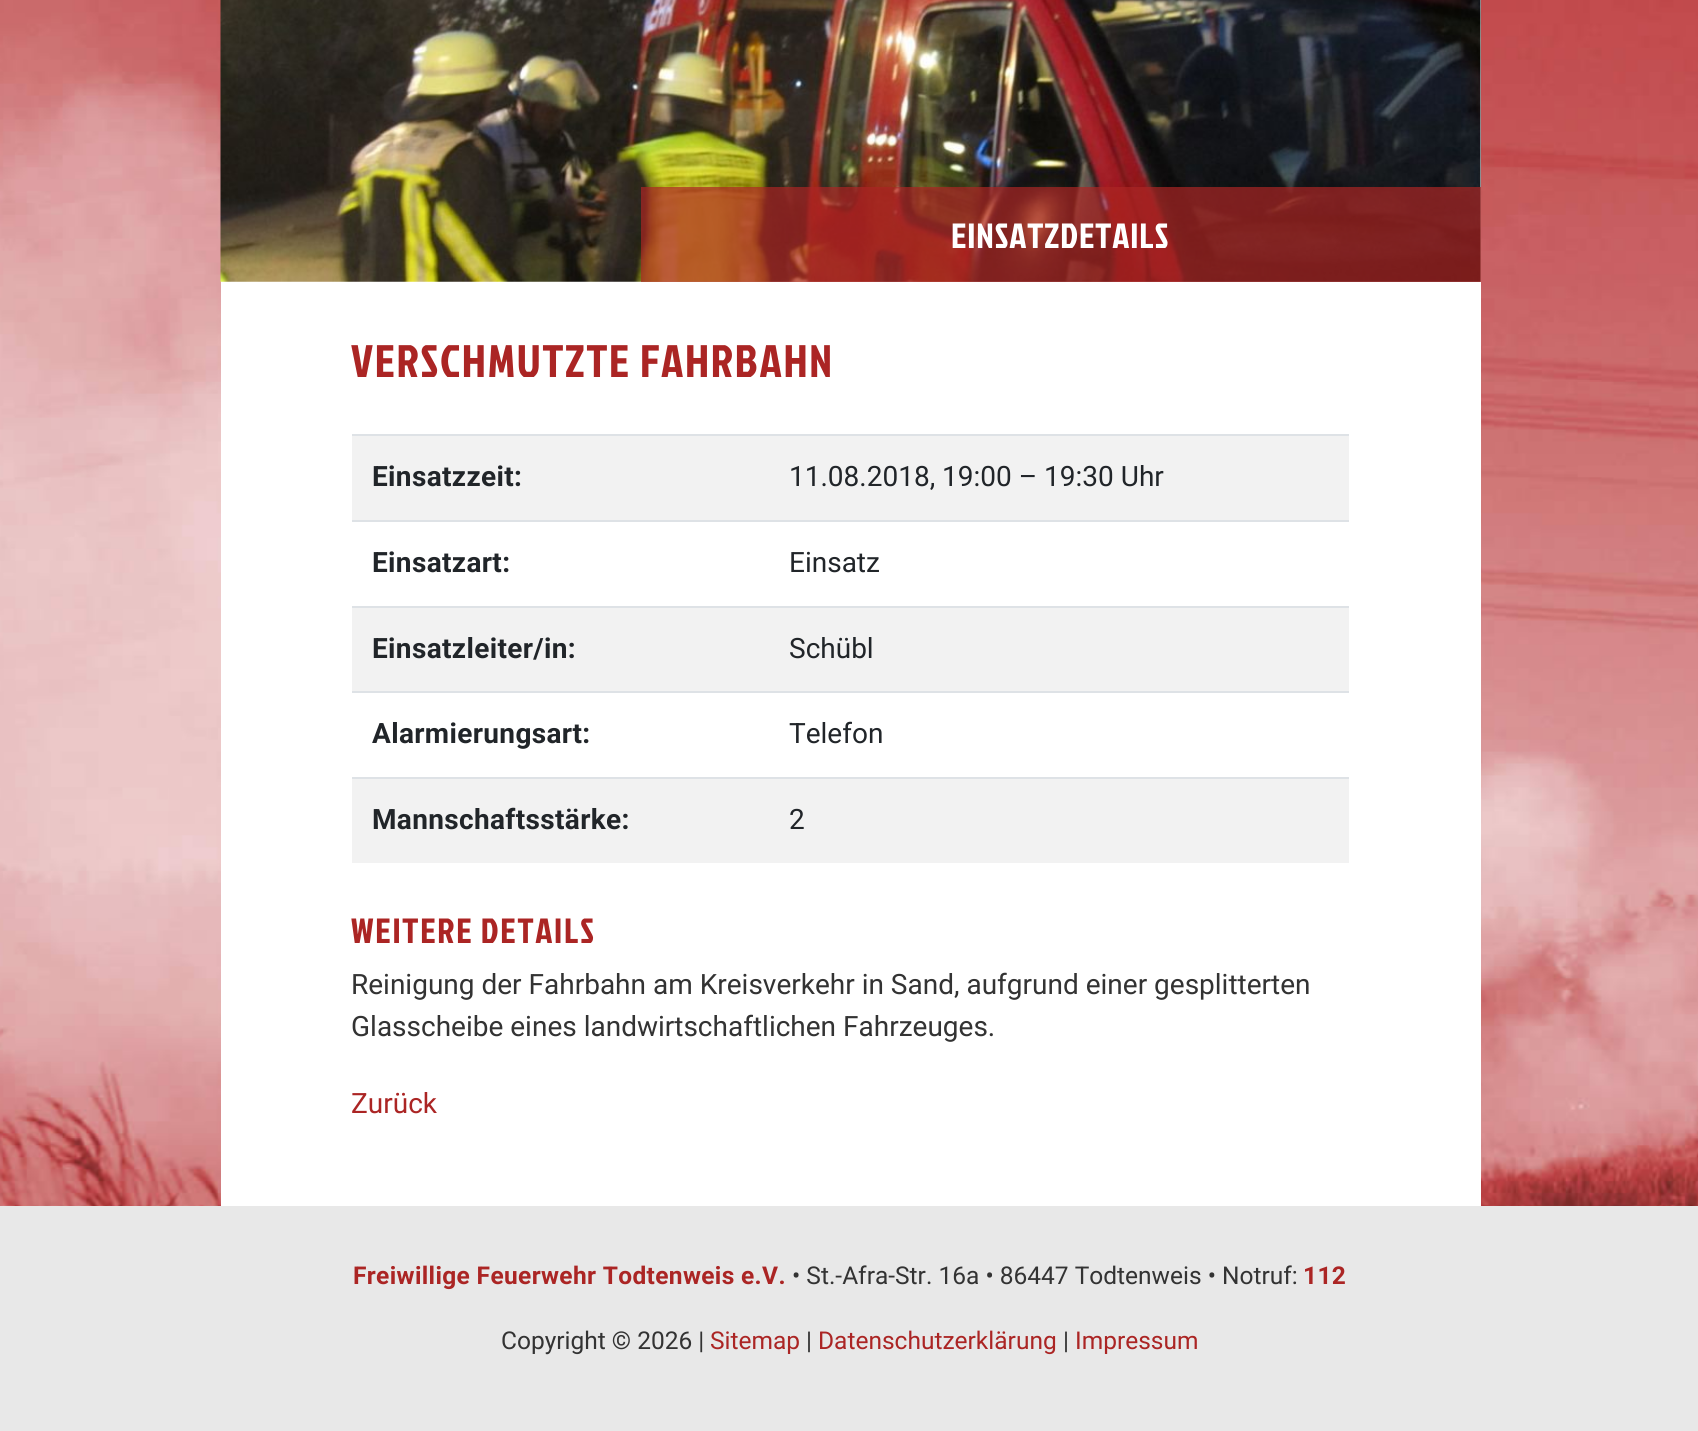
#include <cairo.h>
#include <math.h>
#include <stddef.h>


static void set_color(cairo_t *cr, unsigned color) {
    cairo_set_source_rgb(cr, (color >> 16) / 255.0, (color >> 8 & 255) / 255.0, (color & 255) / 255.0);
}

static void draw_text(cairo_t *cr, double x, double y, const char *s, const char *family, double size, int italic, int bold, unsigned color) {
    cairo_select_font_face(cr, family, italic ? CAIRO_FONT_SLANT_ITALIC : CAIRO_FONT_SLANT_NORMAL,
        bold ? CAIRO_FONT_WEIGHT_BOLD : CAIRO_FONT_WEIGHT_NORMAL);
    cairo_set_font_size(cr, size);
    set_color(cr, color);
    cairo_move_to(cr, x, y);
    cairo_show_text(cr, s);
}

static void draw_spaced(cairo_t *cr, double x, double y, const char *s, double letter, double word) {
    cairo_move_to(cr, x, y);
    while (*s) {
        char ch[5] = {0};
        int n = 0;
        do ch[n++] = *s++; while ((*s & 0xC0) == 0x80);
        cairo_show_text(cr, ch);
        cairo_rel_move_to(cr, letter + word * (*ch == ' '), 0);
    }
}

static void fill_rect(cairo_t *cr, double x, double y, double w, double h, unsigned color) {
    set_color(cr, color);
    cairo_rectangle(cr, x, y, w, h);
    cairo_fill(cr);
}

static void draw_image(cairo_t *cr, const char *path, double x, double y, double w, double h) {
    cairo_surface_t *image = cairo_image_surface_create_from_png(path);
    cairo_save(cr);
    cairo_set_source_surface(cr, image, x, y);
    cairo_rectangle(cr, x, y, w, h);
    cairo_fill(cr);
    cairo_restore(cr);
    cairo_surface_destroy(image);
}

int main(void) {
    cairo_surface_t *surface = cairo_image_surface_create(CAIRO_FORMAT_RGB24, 1698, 1431);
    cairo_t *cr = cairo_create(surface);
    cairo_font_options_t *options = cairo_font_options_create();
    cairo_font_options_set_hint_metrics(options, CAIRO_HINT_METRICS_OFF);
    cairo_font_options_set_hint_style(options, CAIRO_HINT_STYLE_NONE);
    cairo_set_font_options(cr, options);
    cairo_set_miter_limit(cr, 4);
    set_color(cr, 0xFFFFFF);
    cairo_paint(cr);
    draw_image(cr, "assets/img1.png", 0, 0, 1698, 1206);
    fill_rect(cr, 221, 0, 1260, 1206, 0xFFFFFF);
    draw_image(cr, "assets/img2.png", 220, 0, 1261, 282);
    cairo_set_source_rgba(cr, 0.671, 0.149, 0.141, 0.7);
    cairo_rectangle(cr, 641, 187, 840, 95);
    cairo_fill(cr);
    cairo_select_font_face(cr, "Jockey One", CAIRO_FONT_SLANT_NORMAL, CAIRO_FONT_WEIGHT_NORMAL);
    cairo_set_font_size(cr, 35);
    set_color(cr, 0xFFFFFF);
    draw_spaced(cr, 951, 248, "EINSATZDETAILS", 0.9, 0);
    cairo_set_font_size(cr, 45.5);
    set_color(cr, 0xAB2524);
    draw_spaced(cr, 351, 377, "VERSCHMUTZTE FAHRBAHN", 1.75, 0);
    fill_rect(cr, 352, 436, 997, 84, 0xF2F2F2);
    cairo_select_font_face(cr, "Roboto", CAIRO_FONT_SLANT_NORMAL, CAIRO_FONT_WEIGHT_BOLD);
    cairo_set_font_size(cr, 28);
    set_color(cr, 0x212529);
    draw_spaced(cr, 372, 486, "Einsatzzeit:", 0.35, 0);
    fill_rect(cr, 352, 434, 997, 2, 0xDEE2E6);
    draw_text(cr, 789, 486, "11.08.2018, 19:00 – 19:30 Uhr", "Roboto", 28, 0, 0, 0x212529);
    cairo_select_font_face(cr, "Roboto", CAIRO_FONT_SLANT_NORMAL, CAIRO_FONT_WEIGHT_BOLD);
    draw_spaced(cr, 372, 572, "Einsatzart:", 0.35, 0);
    fill_rect(cr, 352, 520, 997, 2, 0xDEE2E6);
    draw_text(cr, 789, 572, "Einsatz", "Roboto", 28, 0, 0, 0x212529);
    fill_rect(cr, 352, 608, 997, 83, 0xF2F2F2);
    cairo_select_font_face(cr, "Roboto", CAIRO_FONT_SLANT_NORMAL, CAIRO_FONT_WEIGHT_BOLD);
    set_color(cr, 0x212529);
    draw_spaced(cr, 372, 658, "Einsatzleiter/in:", 0.35, 0);
    fill_rect(cr, 352, 606, 997, 2, 0xDEE2E6);
    draw_text(cr, 789, 658, "Schübl", "Roboto", 28, 0, 0, 0x212529);
    cairo_select_font_face(cr, "Roboto", CAIRO_FONT_SLANT_NORMAL, CAIRO_FONT_WEIGHT_BOLD);
    draw_spaced(cr, 372, 743, "Alarmierungsart:", 0.35, 0);
    fill_rect(cr, 352, 691, 997, 2, 0xDEE2E6);
    draw_text(cr, 789, 743, "Telefon", "Roboto", 28, 0, 0, 0x212529);
    fill_rect(cr, 352, 779, 997, 84, 0xF2F2F2);
    cairo_select_font_face(cr, "Roboto", CAIRO_FONT_SLANT_NORMAL, CAIRO_FONT_WEIGHT_BOLD);
    set_color(cr, 0x212529);
    draw_spaced(cr, 372, 829, "Mannschaftsstärke:", 0.35, 0);
    fill_rect(cr, 352, 777, 997, 2, 0xDEE2E6);
    draw_text(cr, 789, 829, "2", "Roboto", 28, 0, 0, 0x212529);
    cairo_select_font_face(cr, "Jockey One", CAIRO_FONT_SLANT_NORMAL, CAIRO_FONT_WEIGHT_NORMAL);
    cairo_set_font_size(cr, 35);
    set_color(cr, 0xAB2524);
    draw_spaced(cr, 351, 943, "WEITERE DETAILS", 1.75, 0);
    draw_text(cr, 351, 994, "Reinigung der Fahrbahn am Kreisverkehr in Sand, aufgrund einer gesplitterten", "Roboto", 28, 0, 0, 0x333333);
    draw_text(cr, 351, 1036, "Glasscheibe eines landwirtschaftlichen Fahrzeuges.", "Roboto", 28, 0, 0, 0x333333);
    draw_text(cr, 351, 1113, "Zurück", "Roboto", 28, 0, 0, 0xAB2524);
    fill_rect(cr, 0, 1206, 1698, 225, 0xE8E8E8);
    cairo_select_font_face(cr, "Roboto", CAIRO_FONT_SLANT_NORMAL, CAIRO_FONT_WEIGHT_BOLD);
    cairo_set_font_size(cr, 24.5);
    set_color(cr, 0xAB2524);
    draw_spaced(cr, 353, 1284, "Freiwillige Feuerwehr Todtenweis e.V.", 0.35, 0);
    draw_text(cr, 792, 1284, "• St.-Afra-Str. 16a • 86447 Todtenweis • Notruf:", "Roboto", 24.5, 0, 0, 0x333333);
    cairo_select_font_face(cr, "Roboto", CAIRO_FONT_SLANT_NORMAL, CAIRO_FONT_WEIGHT_BOLD);
    set_color(cr, 0xAB2524);
    draw_spaced(cr, 1303, 1284, "112", 0.35, 0);
    draw_text(cr, 501, 1349, "Copyright © 2026 |", "Roboto", 24.5, 0, 0, 0x333333);
    draw_text(cr, 710, 1349, "Sitemap", "Roboto", 24.5, 0, 0, 0xAB2524);
    draw_text(cr, 806, 1349, "|", "Roboto", 24.5, 0, 0, 0x333333);
    draw_text(cr, 818, 1349, "Datenschutzerklärung", "Roboto", 24.5, 0, 0, 0xAB2524);
    draw_text(cr, 1063, 1349, "|", "Roboto", 24.5, 0, 0, 0x333333);
    draw_text(cr, 1075, 1349, "Impressum", "Roboto", 24.5, 0, 0, 0xAB2524);
    cairo_surface_write_to_png(surface, "output.png");
    cairo_font_options_destroy(options);
    cairo_destroy(cr);
    cairo_surface_destroy(surface);
    return 0;
}
